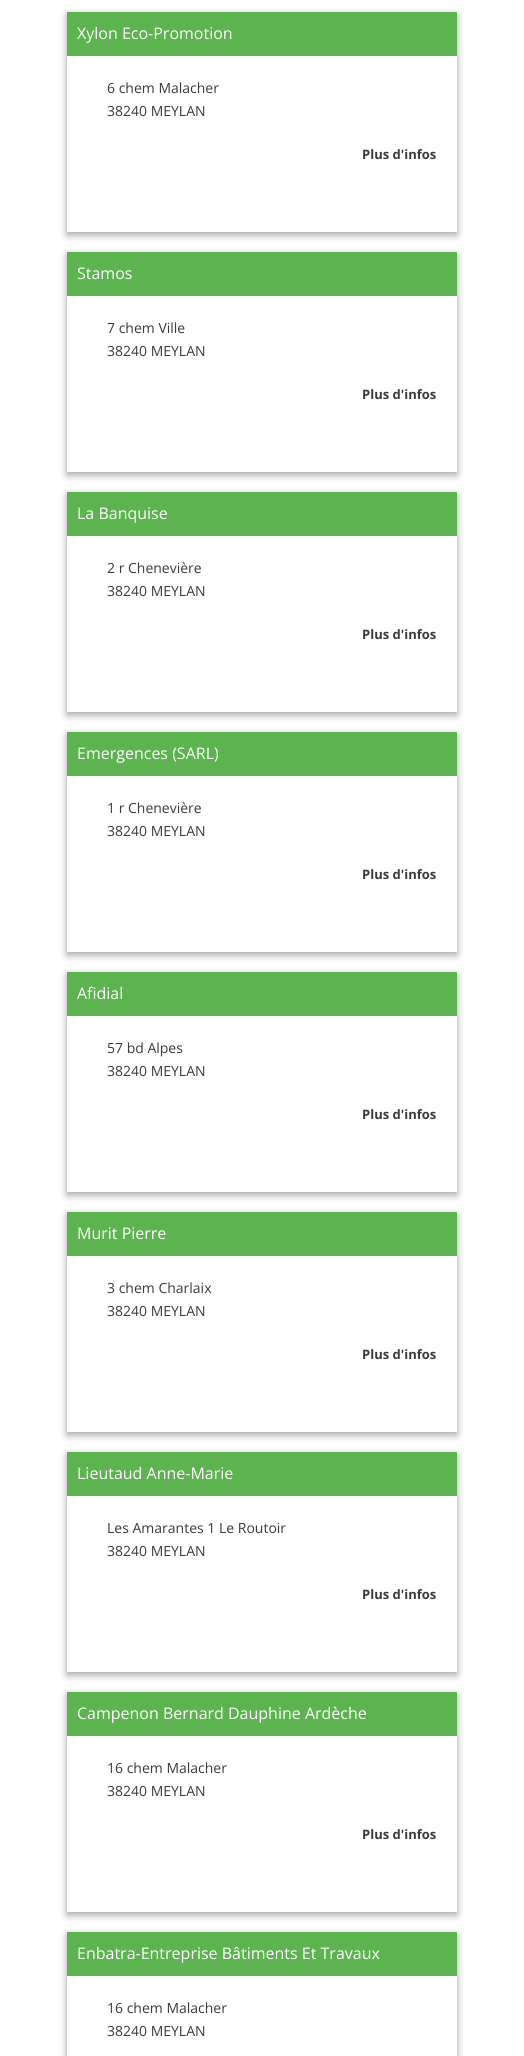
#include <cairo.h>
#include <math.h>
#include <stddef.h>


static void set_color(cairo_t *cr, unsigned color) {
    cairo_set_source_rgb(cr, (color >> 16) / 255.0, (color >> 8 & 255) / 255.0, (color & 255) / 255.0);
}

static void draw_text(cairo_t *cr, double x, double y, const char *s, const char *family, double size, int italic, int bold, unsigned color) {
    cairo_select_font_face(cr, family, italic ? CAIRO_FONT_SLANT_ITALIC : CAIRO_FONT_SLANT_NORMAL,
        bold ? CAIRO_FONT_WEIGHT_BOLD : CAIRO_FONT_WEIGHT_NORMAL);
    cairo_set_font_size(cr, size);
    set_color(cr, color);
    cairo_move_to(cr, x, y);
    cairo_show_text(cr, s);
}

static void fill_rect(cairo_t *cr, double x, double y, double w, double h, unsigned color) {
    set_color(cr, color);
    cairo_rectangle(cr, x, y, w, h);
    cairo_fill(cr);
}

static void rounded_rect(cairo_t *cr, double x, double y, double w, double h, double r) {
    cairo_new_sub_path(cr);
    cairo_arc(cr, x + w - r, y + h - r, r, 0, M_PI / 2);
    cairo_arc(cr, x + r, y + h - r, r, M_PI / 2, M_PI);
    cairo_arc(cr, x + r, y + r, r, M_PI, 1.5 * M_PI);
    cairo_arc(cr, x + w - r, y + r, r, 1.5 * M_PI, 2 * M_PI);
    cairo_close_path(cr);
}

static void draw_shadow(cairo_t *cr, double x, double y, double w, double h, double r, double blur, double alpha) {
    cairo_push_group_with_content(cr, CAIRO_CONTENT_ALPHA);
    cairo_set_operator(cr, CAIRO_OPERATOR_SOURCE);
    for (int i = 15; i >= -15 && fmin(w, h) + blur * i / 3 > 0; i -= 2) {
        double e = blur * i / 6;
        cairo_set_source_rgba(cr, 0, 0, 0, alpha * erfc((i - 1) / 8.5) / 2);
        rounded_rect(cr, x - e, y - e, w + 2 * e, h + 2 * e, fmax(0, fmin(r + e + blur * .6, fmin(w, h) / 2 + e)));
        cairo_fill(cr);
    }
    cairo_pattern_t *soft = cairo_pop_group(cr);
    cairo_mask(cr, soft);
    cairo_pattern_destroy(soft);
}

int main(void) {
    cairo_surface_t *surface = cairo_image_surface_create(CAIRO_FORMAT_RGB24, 524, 2056);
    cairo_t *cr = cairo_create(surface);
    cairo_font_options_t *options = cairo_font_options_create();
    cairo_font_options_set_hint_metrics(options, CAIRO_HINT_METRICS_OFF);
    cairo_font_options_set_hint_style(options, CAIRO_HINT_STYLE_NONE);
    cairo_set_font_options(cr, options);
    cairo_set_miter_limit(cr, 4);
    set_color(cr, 0xFFFFFF);
    cairo_paint(cr);
    cairo_save(cr);
    cairo_set_fill_rule(cr, CAIRO_FILL_RULE_EVEN_ODD);
    cairo_new_path(cr);
    cairo_move_to(cr, 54, 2);
    cairo_line_to(cr, 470, 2);
    cairo_line_to(cr, 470, 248);
    cairo_line_to(cr, 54, 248);
    cairo_close_path(cr);
    cairo_move_to(cr, 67, 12);
    cairo_line_to(cr, 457, 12);
    cairo_line_to(cr, 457, 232);
    cairo_line_to(cr, 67, 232);
    cairo_close_path(cr);
    cairo_clip(cr);
    set_color(cr, 0x000000);
    draw_shadow(cr, 67, 15, 390, 220, 0, 4, 0.16);
    draw_shadow(cr, 67, 15, 390, 220, 0, 4, 0.23);
    cairo_restore(cr);
    fill_rect(cr, 67, 12, 390, 44, 0x5CB34F);
    draw_text(cr, 77, 39, "Xylon Eco-Promotion", "Open Sans", 16, 0, 0, 0xFFFFFF);
    draw_text(cr, 107, 93, "6 chem Malacher", "Open Sans", 14, 0, 0, 0x3A3A3A);
    draw_text(cr, 107, 116, "38240 MEYLAN", "Open Sans", 14, 0, 0, 0x3A3A3A);
    draw_text(cr, 362, 159, "Plus d'infos", "Open Sans", 13, 0, 1, 0x3A3A3A);
    cairo_save(cr);
    cairo_set_fill_rule(cr, CAIRO_FILL_RULE_EVEN_ODD);
    cairo_new_path(cr);
    cairo_move_to(cr, 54, 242);
    cairo_line_to(cr, 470, 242);
    cairo_line_to(cr, 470, 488);
    cairo_line_to(cr, 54, 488);
    cairo_close_path(cr);
    cairo_move_to(cr, 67, 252);
    cairo_line_to(cr, 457, 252);
    cairo_line_to(cr, 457, 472);
    cairo_line_to(cr, 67, 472);
    cairo_close_path(cr);
    cairo_clip(cr);
    set_color(cr, 0x000000);
    draw_shadow(cr, 67, 255, 390, 220, 0, 4, 0.16);
    draw_shadow(cr, 67, 255, 390, 220, 0, 4, 0.23);
    cairo_restore(cr);
    fill_rect(cr, 67, 252, 390, 44, 0x5CB34F);
    draw_text(cr, 77, 279, "Stamos", "Open Sans", 16, 0, 0, 0xFFFFFF);
    draw_text(cr, 107, 333, "7 chem Ville", "Open Sans", 14, 0, 0, 0x3A3A3A);
    draw_text(cr, 107, 356, "38240 MEYLAN", "Open Sans", 14, 0, 0, 0x3A3A3A);
    draw_text(cr, 362, 399, "Plus d'infos", "Open Sans", 13, 0, 1, 0x3A3A3A);
    cairo_save(cr);
    cairo_set_fill_rule(cr, CAIRO_FILL_RULE_EVEN_ODD);
    cairo_new_path(cr);
    cairo_move_to(cr, 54, 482);
    cairo_line_to(cr, 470, 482);
    cairo_line_to(cr, 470, 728);
    cairo_line_to(cr, 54, 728);
    cairo_close_path(cr);
    cairo_move_to(cr, 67, 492);
    cairo_line_to(cr, 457, 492);
    cairo_line_to(cr, 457, 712);
    cairo_line_to(cr, 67, 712);
    cairo_close_path(cr);
    cairo_clip(cr);
    set_color(cr, 0x000000);
    draw_shadow(cr, 67, 495, 390, 220, 0, 4, 0.16);
    draw_shadow(cr, 67, 495, 390, 220, 0, 4, 0.23);
    cairo_restore(cr);
    fill_rect(cr, 67, 492, 390, 44, 0x5CB34F);
    draw_text(cr, 77, 519, "La Banquise", "Open Sans", 16, 0, 0, 0xFFFFFF);
    draw_text(cr, 107, 573, "2 r Chenevière", "Open Sans", 14, 0, 0, 0x3A3A3A);
    draw_text(cr, 107, 596, "38240 MEYLAN", "Open Sans", 14, 0, 0, 0x3A3A3A);
    draw_text(cr, 362, 639, "Plus d'infos", "Open Sans", 13, 0, 1, 0x3A3A3A);
    cairo_save(cr);
    cairo_set_fill_rule(cr, CAIRO_FILL_RULE_EVEN_ODD);
    cairo_new_path(cr);
    cairo_move_to(cr, 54, 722);
    cairo_line_to(cr, 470, 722);
    cairo_line_to(cr, 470, 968);
    cairo_line_to(cr, 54, 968);
    cairo_close_path(cr);
    cairo_move_to(cr, 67, 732);
    cairo_line_to(cr, 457, 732);
    cairo_line_to(cr, 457, 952);
    cairo_line_to(cr, 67, 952);
    cairo_close_path(cr);
    cairo_clip(cr);
    set_color(cr, 0x000000);
    draw_shadow(cr, 67, 735, 390, 220, 0, 4, 0.16);
    draw_shadow(cr, 67, 735, 390, 220, 0, 4, 0.23);
    cairo_restore(cr);
    fill_rect(cr, 67, 732, 390, 44, 0x5CB34F);
    draw_text(cr, 77, 759, "Emergences (SARL)", "Open Sans", 16, 0, 0, 0xFFFFFF);
    draw_text(cr, 107, 813, "1 r Chenevière", "Open Sans", 14, 0, 0, 0x3A3A3A);
    draw_text(cr, 107, 836, "38240 MEYLAN", "Open Sans", 14, 0, 0, 0x3A3A3A);
    draw_text(cr, 362, 879, "Plus d'infos", "Open Sans", 13, 0, 1, 0x3A3A3A);
    cairo_save(cr);
    cairo_set_fill_rule(cr, CAIRO_FILL_RULE_EVEN_ODD);
    cairo_new_path(cr);
    cairo_move_to(cr, 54, 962);
    cairo_line_to(cr, 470, 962);
    cairo_line_to(cr, 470, 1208);
    cairo_line_to(cr, 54, 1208);
    cairo_close_path(cr);
    cairo_move_to(cr, 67, 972);
    cairo_line_to(cr, 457, 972);
    cairo_line_to(cr, 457, 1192);
    cairo_line_to(cr, 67, 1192);
    cairo_close_path(cr);
    cairo_clip(cr);
    set_color(cr, 0x000000);
    draw_shadow(cr, 67, 975, 390, 220, 0, 4, 0.16);
    draw_shadow(cr, 67, 975, 390, 220, 0, 4, 0.23);
    cairo_restore(cr);
    fill_rect(cr, 67, 972, 390, 44, 0x5CB34F);
    draw_text(cr, 77, 999, "Afidial", "Open Sans", 16, 0, 0, 0xFFFFFF);
    draw_text(cr, 107, 1053, "57 bd Alpes", "Open Sans", 14, 0, 0, 0x3A3A3A);
    draw_text(cr, 107, 1076, "38240 MEYLAN", "Open Sans", 14, 0, 0, 0x3A3A3A);
    draw_text(cr, 362, 1119, "Plus d'infos", "Open Sans", 13, 0, 1, 0x3A3A3A);
    cairo_save(cr);
    cairo_set_fill_rule(cr, CAIRO_FILL_RULE_EVEN_ODD);
    cairo_new_path(cr);
    cairo_move_to(cr, 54, 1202);
    cairo_line_to(cr, 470, 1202);
    cairo_line_to(cr, 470, 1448);
    cairo_line_to(cr, 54, 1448);
    cairo_close_path(cr);
    cairo_move_to(cr, 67, 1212);
    cairo_line_to(cr, 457, 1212);
    cairo_line_to(cr, 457, 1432);
    cairo_line_to(cr, 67, 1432);
    cairo_close_path(cr);
    cairo_clip(cr);
    set_color(cr, 0x000000);
    draw_shadow(cr, 67, 1215, 390, 220, 0, 4, 0.16);
    draw_shadow(cr, 67, 1215, 390, 220, 0, 4, 0.23);
    cairo_restore(cr);
    fill_rect(cr, 67, 1212, 390, 44, 0x5CB34F);
    draw_text(cr, 77, 1239, "Murit Pierre", "Open Sans", 16, 0, 0, 0xFFFFFF);
    draw_text(cr, 107, 1293, "3 chem Charlaix", "Open Sans", 14, 0, 0, 0x3A3A3A);
    draw_text(cr, 107, 1316, "38240 MEYLAN", "Open Sans", 14, 0, 0, 0x3A3A3A);
    draw_text(cr, 362, 1359, "Plus d'infos", "Open Sans", 13, 0, 1, 0x3A3A3A);
    cairo_save(cr);
    cairo_set_fill_rule(cr, CAIRO_FILL_RULE_EVEN_ODD);
    cairo_new_path(cr);
    cairo_move_to(cr, 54, 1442);
    cairo_line_to(cr, 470, 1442);
    cairo_line_to(cr, 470, 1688);
    cairo_line_to(cr, 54, 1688);
    cairo_close_path(cr);
    cairo_move_to(cr, 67, 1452);
    cairo_line_to(cr, 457, 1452);
    cairo_line_to(cr, 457, 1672);
    cairo_line_to(cr, 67, 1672);
    cairo_close_path(cr);
    cairo_clip(cr);
    set_color(cr, 0x000000);
    draw_shadow(cr, 67, 1455, 390, 220, 0, 4, 0.16);
    draw_shadow(cr, 67, 1455, 390, 220, 0, 4, 0.23);
    cairo_restore(cr);
    fill_rect(cr, 67, 1452, 390, 44, 0x5CB34F);
    draw_text(cr, 77, 1479, "Lieutaud Anne-Marie", "Open Sans", 16, 0, 0, 0xFFFFFF);
    draw_text(cr, 107, 1533, "Les Amarantes 1 Le Routoir", "Open Sans", 14, 0, 0, 0x3A3A3A);
    draw_text(cr, 107, 1556, "38240 MEYLAN", "Open Sans", 14, 0, 0, 0x3A3A3A);
    draw_text(cr, 362, 1599, "Plus d'infos", "Open Sans", 13, 0, 1, 0x3A3A3A);
    cairo_save(cr);
    cairo_set_fill_rule(cr, CAIRO_FILL_RULE_EVEN_ODD);
    cairo_new_path(cr);
    cairo_move_to(cr, 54, 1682);
    cairo_line_to(cr, 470, 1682);
    cairo_line_to(cr, 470, 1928);
    cairo_line_to(cr, 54, 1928);
    cairo_close_path(cr);
    cairo_move_to(cr, 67, 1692);
    cairo_line_to(cr, 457, 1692);
    cairo_line_to(cr, 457, 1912);
    cairo_line_to(cr, 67, 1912);
    cairo_close_path(cr);
    cairo_clip(cr);
    set_color(cr, 0x000000);
    draw_shadow(cr, 67, 1695, 390, 220, 0, 4, 0.16);
    draw_shadow(cr, 67, 1695, 390, 220, 0, 4, 0.23);
    cairo_restore(cr);
    fill_rect(cr, 67, 1692, 390, 44, 0x5CB34F);
    draw_text(cr, 77, 1719, "Campenon Bernard Dauphine Ardèche", "Open Sans", 16, 0, 0, 0xFFFFFF);
    draw_text(cr, 107, 1773, "16 chem Malacher", "Open Sans", 14, 0, 0, 0x3A3A3A);
    draw_text(cr, 107, 1796, "38240 MEYLAN", "Open Sans", 14, 0, 0, 0x3A3A3A);
    draw_text(cr, 362, 1839, "Plus d'infos", "Open Sans", 13, 0, 1, 0x3A3A3A);
    cairo_save(cr);
    cairo_set_fill_rule(cr, CAIRO_FILL_RULE_EVEN_ODD);
    cairo_new_path(cr);
    cairo_move_to(cr, 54, 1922);
    cairo_line_to(cr, 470, 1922);
    cairo_line_to(cr, 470, 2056);
    cairo_line_to(cr, 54, 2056);
    cairo_close_path(cr);
    cairo_move_to(cr, 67, 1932);
    cairo_line_to(cr, 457, 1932);
    cairo_line_to(cr, 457, 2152);
    cairo_line_to(cr, 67, 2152);
    cairo_close_path(cr);
    cairo_clip(cr);
    set_color(cr, 0x000000);
    draw_shadow(cr, 67, 1935, 390, 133, 0, 4, 0.16);
    draw_shadow(cr, 67, 1935, 390, 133, 0, 4, 0.23);
    cairo_restore(cr);
    fill_rect(cr, 67, 1932, 390, 44, 0x5CB34F);
    draw_text(cr, 77, 1959, "Enbatra-Entreprise Bâtiments Et Travaux", "Open Sans", 16, 0, 0, 0xFFFFFF);
    draw_text(cr, 107, 2013, "16 chem Malacher", "Open Sans", 14, 0, 0, 0x3A3A3A);
    draw_text(cr, 107, 2036, "38240 MEYLAN", "Open Sans", 14, 0, 0, 0x3A3A3A);
    cairo_surface_write_to_png(surface, "output.png");
    cairo_font_options_destroy(options);
    cairo_destroy(cr);
    cairo_surface_destroy(surface);
    return 0;
}
